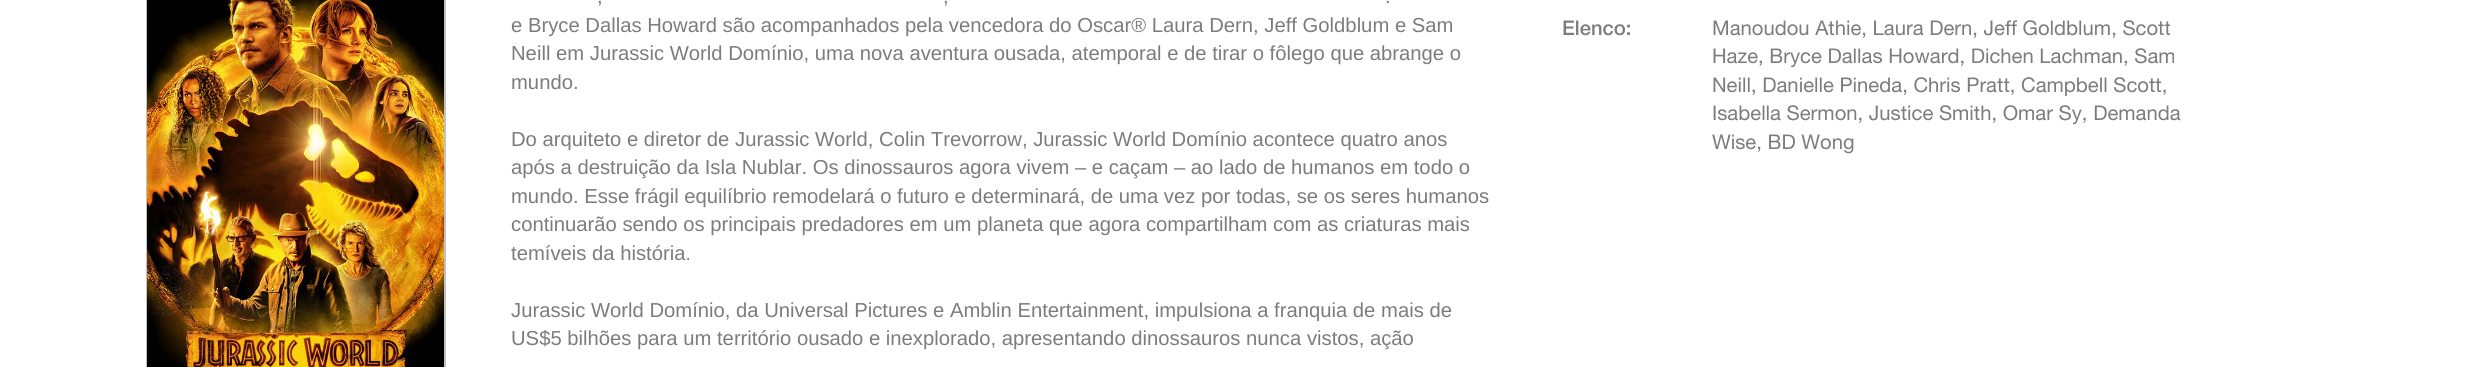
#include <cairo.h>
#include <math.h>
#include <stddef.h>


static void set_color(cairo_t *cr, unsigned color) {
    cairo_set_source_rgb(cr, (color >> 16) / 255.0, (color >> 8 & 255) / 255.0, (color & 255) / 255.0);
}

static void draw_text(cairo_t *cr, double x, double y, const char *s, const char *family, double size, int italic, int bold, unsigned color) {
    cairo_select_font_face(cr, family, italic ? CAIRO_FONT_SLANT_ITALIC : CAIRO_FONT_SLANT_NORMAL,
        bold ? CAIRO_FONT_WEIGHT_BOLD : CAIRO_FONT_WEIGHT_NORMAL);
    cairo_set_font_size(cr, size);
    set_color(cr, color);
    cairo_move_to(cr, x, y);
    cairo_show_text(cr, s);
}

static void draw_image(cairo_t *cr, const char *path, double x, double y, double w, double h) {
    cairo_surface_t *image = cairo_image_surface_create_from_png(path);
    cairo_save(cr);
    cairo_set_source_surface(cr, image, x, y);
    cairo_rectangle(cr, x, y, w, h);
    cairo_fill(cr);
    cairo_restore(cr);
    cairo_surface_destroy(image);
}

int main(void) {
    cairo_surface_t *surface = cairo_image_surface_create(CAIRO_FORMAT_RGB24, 2480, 367);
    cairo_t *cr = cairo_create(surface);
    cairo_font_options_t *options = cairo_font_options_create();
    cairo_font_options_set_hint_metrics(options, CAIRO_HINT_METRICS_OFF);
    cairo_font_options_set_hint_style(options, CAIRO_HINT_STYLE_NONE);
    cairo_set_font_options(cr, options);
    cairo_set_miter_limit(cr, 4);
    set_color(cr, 0xFFFFFF);
    cairo_paint(cr);
    cairo_rectangle(cr, 147, -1, 298, 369);
    set_color(cr, 0xC2C2C2);
    cairo_stroke(cr);
    draw_image(cr, "assets/img1.png", 147, 0, 297, 367);
    draw_text(cr, 597, 3, ",", "Liberation Sans", 20.25, 0, 0, 0x7C7C7C);
    draw_text(cr, 943, 3, ",", "Liberation Sans", 20.25, 0, 0, 0x7C7C7C);
    draw_text(cr, 1385, 3, ".", "Liberation Sans", 20.25, 0, 0, 0x7C7C7C);
    draw_text(cr, 511, 32, "e Bryce Dallas Howard são acompanhados pela vencedora do Oscar® Laura Dern, Jeff Goldblum e Sam", "Liberation Sans", 20.25, 0, 0, 0x7C7C7C);
    draw_text(cr, 511, 60, "Neill em Jurassic World Domínio, uma nova aventura ousada, atemporal e de tirar o fôlego que abrange o", "Liberation Sans", 20.25, 0, 0, 0x7C7C7C);
    draw_text(cr, 511, 89, "mundo.", "Liberation Sans", 20.25, 0, 0, 0x7C7C7C);
    draw_text(cr, 511, 146, "Do arquiteto e diretor de Jurassic World, Colin Trevorrow, Jurassic World Domínio acontece quatro anos", "Liberation Sans", 20.25, 0, 0, 0x7C7C7C);
    draw_text(cr, 511, 174, "após a destruição da Isla Nublar. Os dinossauros agora vivem – e caçam – ao lado de humanos em todo o", "Liberation Sans", 20.25, 0, 0, 0x7C7C7C);
    draw_text(cr, 511, 203, "mundo. Esse frágil equilíbrio remodelará o futuro e determinará, de uma vez por todas, se os seres humanos", "Liberation Sans", 20.25, 0, 0, 0x7C7C7C);
    draw_text(cr, 511, 231, "continuarão sendo os principais predadores em um planeta que agora compartilham com as criaturas mais", "Liberation Sans", 20.25, 0, 0, 0x7C7C7C);
    draw_text(cr, 511, 260, "temíveis da história.", "Liberation Sans", 20.25, 0, 0, 0x7C7C7C);
    draw_text(cr, 511, 317, "Jurassic World Domínio, da Universal Pictures e Amblin Entertainment, impulsiona a franquia de mais de", "Liberation Sans", 20.25, 0, 0, 0x7C7C7C);
    draw_text(cr, 511, 345, "US$5 bilhões para um território ousado e inexplorado, apresentando dinossauros nunca vistos, ação", "Liberation Sans", 20.25, 0, 0, 0x7C7C7C);
    draw_text(cr, 1562, 35, "Elenco:", "Helvetica Neue Medium", 20.25, 0, 0, 0x7C7C7C);
    draw_text(cr, 1712, 35, "Manoudou Athie, Laura Dern, Jeff Goldblum, Scott", "Helvetica Neue", 20.25, 0, 0, 0x7C7C7C);
    draw_text(cr, 1712, 63, "Haze, Bryce Dallas Howard, Dichen Lachman, Sam", "Helvetica Neue", 20.25, 0, 0, 0x7C7C7C);
    draw_text(cr, 1712, 92, "Neill, Danielle Pineda, Chris Pratt, Campbell Scott,", "Helvetica Neue", 20.25, 0, 0, 0x7C7C7C);
    draw_text(cr, 1712, 120, "Isabella Sermon, Justice Smith, Omar Sy, Demanda", "Helvetica Neue", 20.25, 0, 0, 0x7C7C7C);
    draw_text(cr, 1712, 149, "Wise, BD Wong", "Helvetica Neue", 20.25, 0, 0, 0x7C7C7C);
    cairo_surface_write_to_png(surface, "output.png");
    cairo_font_options_destroy(options);
    cairo_destroy(cr);
    cairo_surface_destroy(surface);
    return 0;
}
